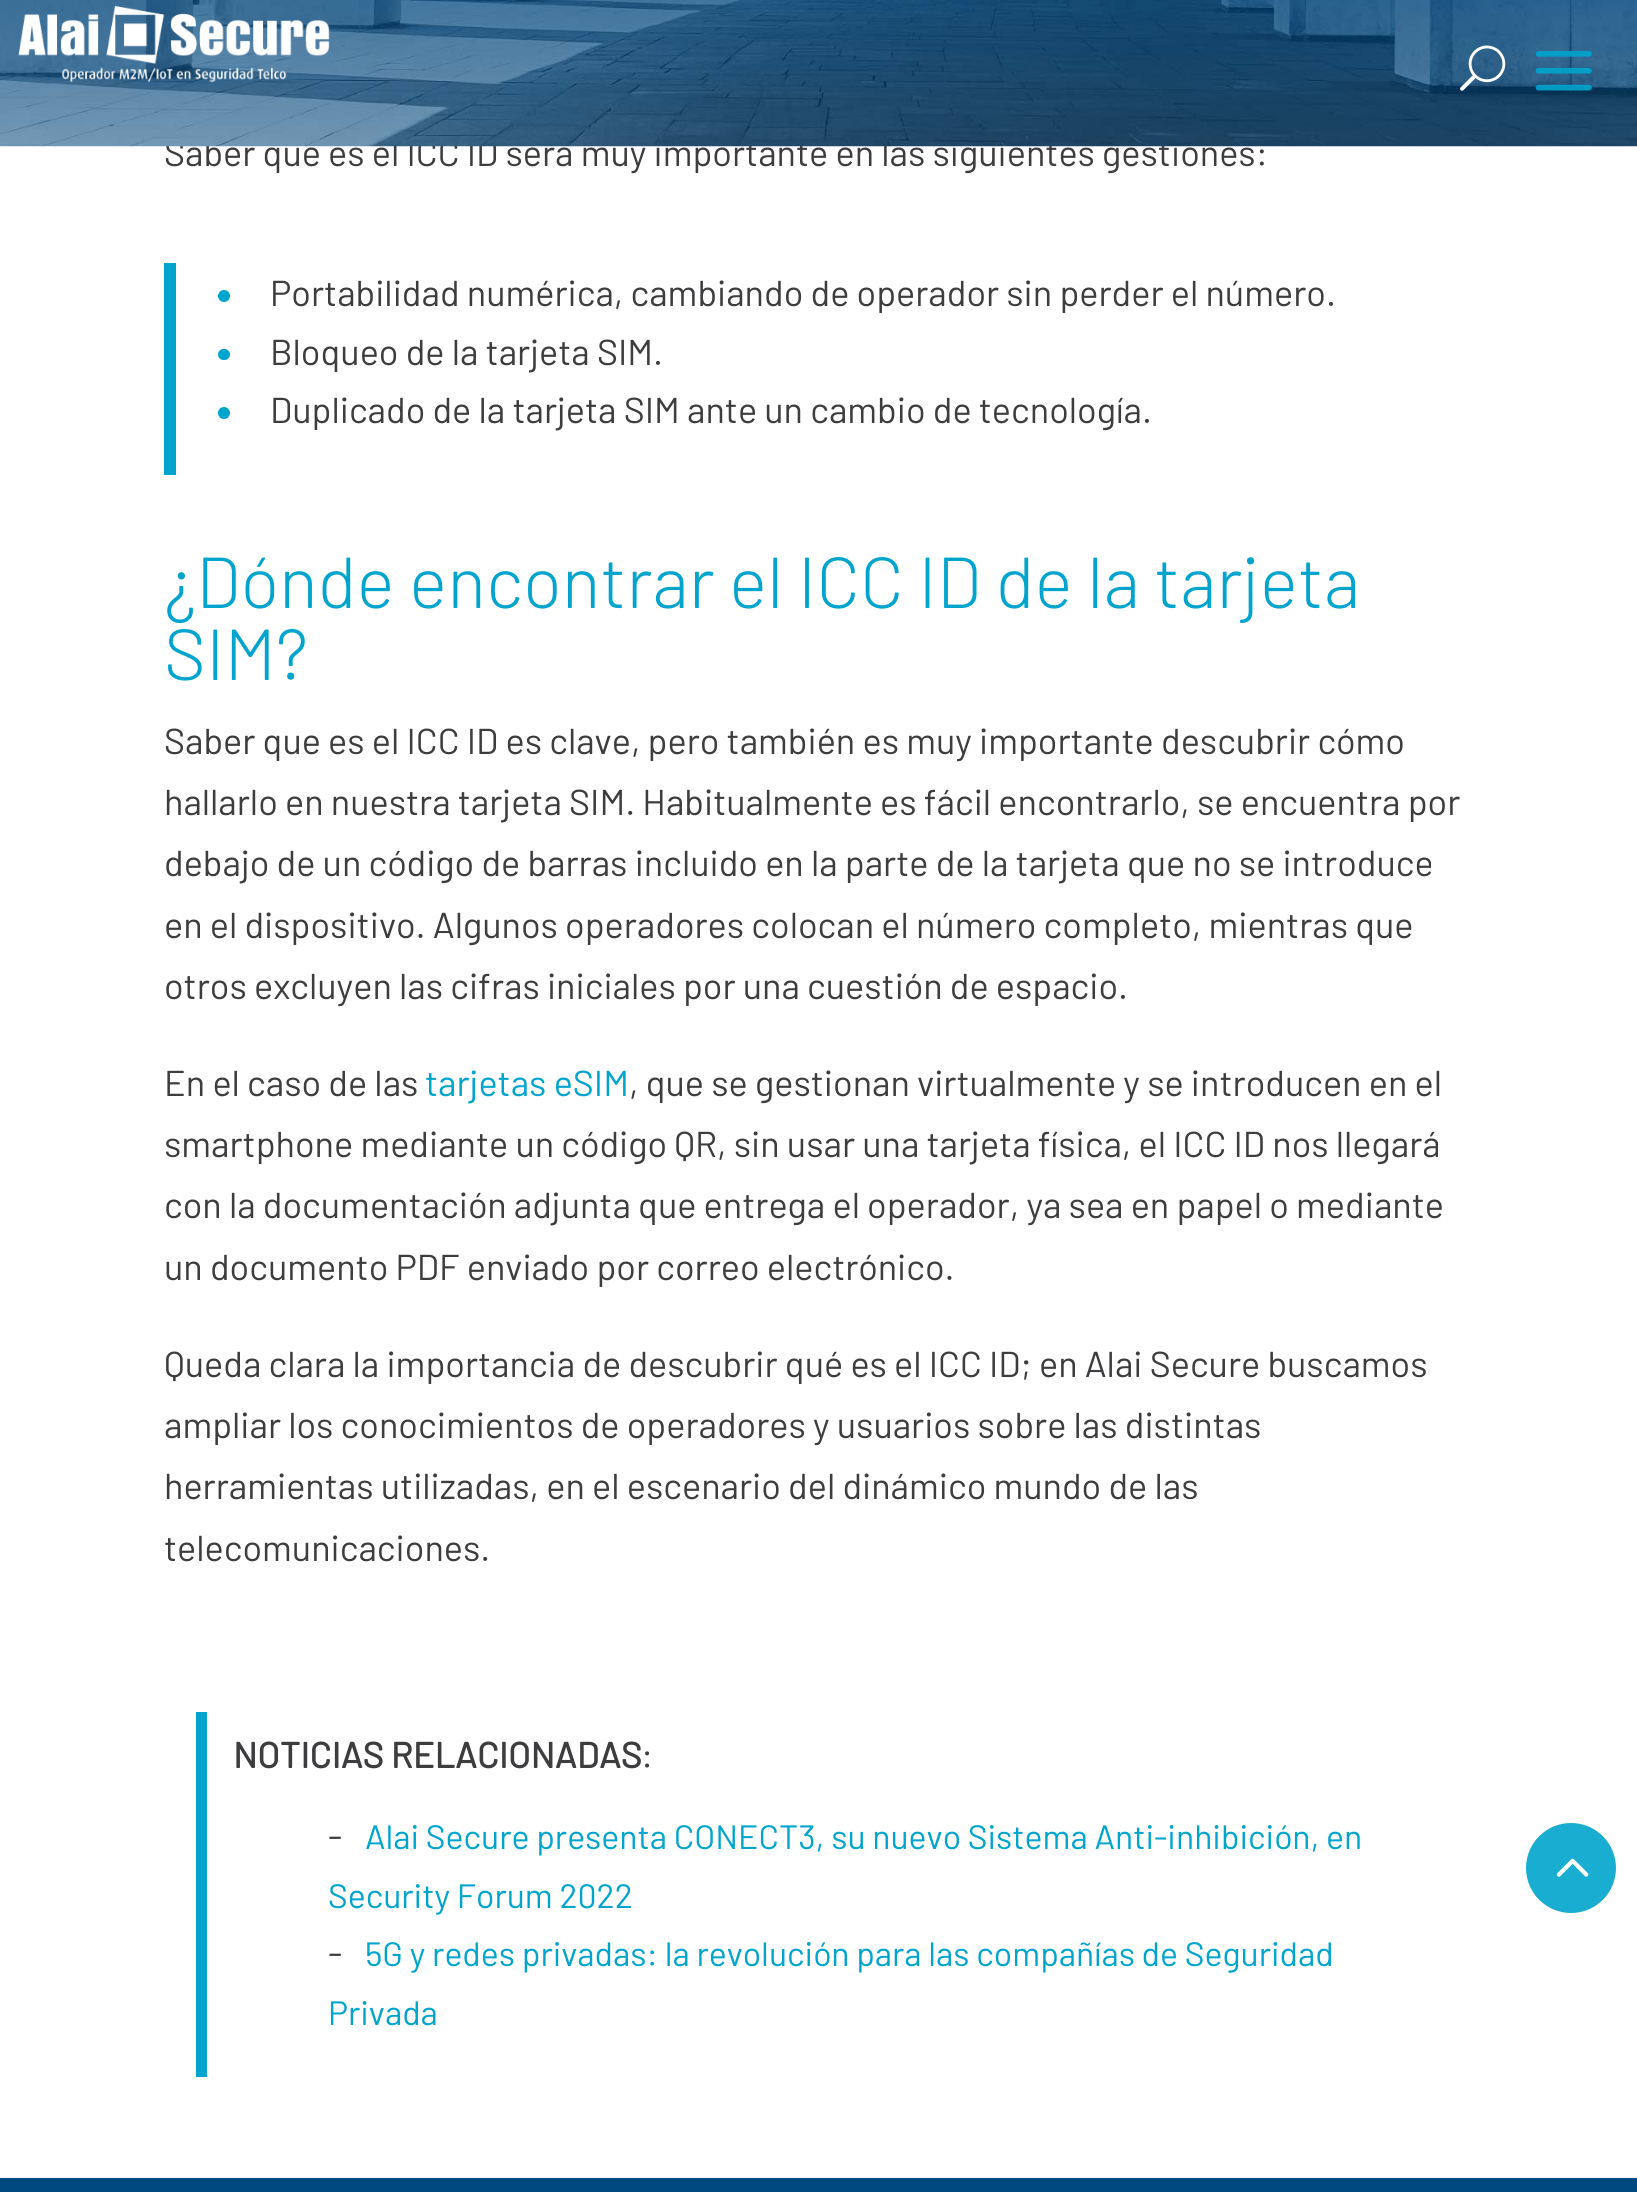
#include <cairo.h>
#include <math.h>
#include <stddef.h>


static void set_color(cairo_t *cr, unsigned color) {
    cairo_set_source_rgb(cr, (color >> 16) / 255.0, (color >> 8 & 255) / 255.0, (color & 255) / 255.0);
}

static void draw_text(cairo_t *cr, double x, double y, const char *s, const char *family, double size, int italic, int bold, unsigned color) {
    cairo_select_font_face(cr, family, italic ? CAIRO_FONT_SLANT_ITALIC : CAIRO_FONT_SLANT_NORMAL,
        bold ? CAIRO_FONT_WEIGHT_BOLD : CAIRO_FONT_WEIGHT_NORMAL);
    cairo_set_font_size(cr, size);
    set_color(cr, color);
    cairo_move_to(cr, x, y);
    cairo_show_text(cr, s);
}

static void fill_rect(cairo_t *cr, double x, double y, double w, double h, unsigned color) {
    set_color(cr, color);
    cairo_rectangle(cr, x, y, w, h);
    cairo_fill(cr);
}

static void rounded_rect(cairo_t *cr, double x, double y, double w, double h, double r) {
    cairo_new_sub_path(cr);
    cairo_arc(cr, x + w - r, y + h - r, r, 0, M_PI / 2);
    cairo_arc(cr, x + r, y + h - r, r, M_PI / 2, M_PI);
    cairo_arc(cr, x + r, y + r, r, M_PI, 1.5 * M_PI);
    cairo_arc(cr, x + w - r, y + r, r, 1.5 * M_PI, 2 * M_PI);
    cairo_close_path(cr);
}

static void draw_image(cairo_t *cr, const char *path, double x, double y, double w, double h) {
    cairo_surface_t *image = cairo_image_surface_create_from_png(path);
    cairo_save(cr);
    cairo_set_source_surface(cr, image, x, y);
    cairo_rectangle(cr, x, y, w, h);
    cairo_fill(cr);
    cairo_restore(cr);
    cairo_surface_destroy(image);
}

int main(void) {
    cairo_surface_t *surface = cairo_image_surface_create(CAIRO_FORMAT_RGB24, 1637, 2192);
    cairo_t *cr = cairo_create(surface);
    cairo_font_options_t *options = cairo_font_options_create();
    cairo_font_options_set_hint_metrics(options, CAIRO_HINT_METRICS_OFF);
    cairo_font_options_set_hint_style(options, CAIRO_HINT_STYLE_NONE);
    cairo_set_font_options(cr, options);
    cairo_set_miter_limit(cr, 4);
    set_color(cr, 0xFFFFFF);
    cairo_paint(cr);
    draw_text(cr, 164, 166, "Saber qué es el ICC ID será muy importante en las siguientes gestiones:", "Barlow", 36, 0, 0, 0x3D3D3F);
    draw_image(cr, "assets/img1.png", 0, 0, 1637, 147);
    draw_image(cr, "assets/img2.png", 18, 5, 312, 78);
    draw_image(cr, "assets/img3.png", 1460, 45, 46, 46);
    draw_image(cr, "assets/img4.png", 1535, 51, 57, 40);
    fill_rect(cr, 164, 263, 12, 212, 0x00A4CD);
    set_color(cr, 0x00A5CE);
    cairo_arc(cr, 224, 296, 6, 0, 2 * M_PI);
    cairo_fill(cr);
    draw_text(cr, 270, 306, "Portabilidad numérica, cambiando de operador sin perder el número.", "Barlow", 36, 0, 0, 0x3D3D3F);
    set_color(cr, 0x00A5CE);
    rounded_rect(cr, 218, 349, 12, 11, 5.5);
    cairo_fill(cr);
    draw_text(cr, 270, 365, "Bloqueo de la tarjeta SIM.", "Barlow", 36, 0, 0, 0x3D3D3F);
    set_color(cr, 0x00A5CE);
    cairo_new_path(cr);
    cairo_arc(cr, 224, 413, 6, 0, 2 * M_PI);
    cairo_fill(cr);
    draw_text(cr, 270, 423, "Duplicado de la tarjeta SIM ante un cambio de tecnología.", "Barlow", 36, 0, 0, 0x3D3D3F);
    draw_text(cr, 164, 608, "¿Dónde encontrar el ICC ID de la tarjeta", "Barlow Light", 72, 0, 0, 0x00A4CD);
    draw_text(cr, 164, 680, "SIM?", "Barlow Light", 72, 0, 0, 0x00A4CD);
    draw_text(cr, 164, 754, "Saber que es el ICC ID es clave, pero también es muy importante descubrir cómo", "Barlow", 36, 0, 0, 0x3D3D3F);
    draw_text(cr, 164, 815, "hallarlo en nuestra tarjeta SIM. Habitualmente es fácil encontrarlo, se encuentra por", "Barlow", 36, 0, 0, 0x3D3D3F);
    draw_text(cr, 164, 876, "debajo de un código de barras incluido en la parte de la tarjeta que no se introduce", "Barlow", 36, 0, 0, 0x3D3D3F);
    draw_text(cr, 164, 938, "en el dispositivo. Algunos operadores colocan el número completo, mientras que", "Barlow", 36, 0, 0, 0x3D3D3F);
    draw_text(cr, 164, 999, "otros excluyen las cifras iniciales por una cuestión de espacio.", "Barlow", 36, 0, 0, 0x3D3D3F);
    draw_text(cr, 164, 1096, "En el caso de las", "Barlow", 36, 0, 0, 0x3D3D3F);
    draw_text(cr, 425, 1096, "tarjetas eSIM", "Barlow", 36, 0, 0, 0x00A4CD);
    draw_text(cr, 629, 1096, ", que se gestionan virtualmente y se introducen en el", "Barlow", 36, 0, 0, 0x3D3D3F);
    draw_text(cr, 164, 1157, "smartphone mediante un código QR, sin usar una tarjeta física, el ICC ID nos llegará", "Barlow", 36, 0, 0, 0x3D3D3F);
    draw_text(cr, 164, 1218, "con la documentación adjunta que entrega el operador, ya sea en papel o mediante", "Barlow", 36, 0, 0, 0x3D3D3F);
    draw_text(cr, 164, 1280, "un documento PDF enviado por correo electrónico.", "Barlow", 36, 0, 0, 0x3D3D3F);
    draw_text(cr, 164, 1377, "Queda clara la importancia de descubrir qué es el ICC ID; en Alai Secure buscamos", "Barlow", 36, 0, 0, 0x3D3D3F);
    draw_text(cr, 164, 1438, "ampliar los conocimientos de operadores y usuarios sobre las distintas", "Barlow", 36, 0, 0, 0x3D3D3F);
    draw_text(cr, 164, 1499, "herramientas utilizadas, en el escenario del dinámico mundo de las", "Barlow", 36, 0, 0, 0x3D3D3F);
    draw_text(cr, 164, 1561, "telecomunicaciones.", "Barlow", 36, 0, 0, 0x3D3D3F);
    fill_rect(cr, 196, 1712, 11, 365, 0x00A4CD);
    draw_text(cr, 233, 1768, "NOTICIAS RELACIONADAS", "Barlow", 36, 0, 1, 0x3D3D3F);
    draw_text(cr, 641, 1768, ":", "Barlow", 36, 0, 0, 0x3D3D3F);
    draw_text(cr, 328, 1849, "-", "Barlow", 36, 0, 0, 0x3D3D3F);
    draw_text(cr, 365, 1849, "Alai Secure presenta CONECT3, su nuevo Sistema Anti-inhibición, en", "Barlow", 33.75, 0, 0, 0x00A4CD);
    draw_text(cr, 328, 1908, "Security Forum 2022", "Barlow", 33.75, 0, 0, 0x00A4CD);
    draw_text(cr, 328, 1966, "-", "Barlow", 36, 0, 0, 0x3D3D3F);
    draw_text(cr, 365, 1966, "5G y redes privadas: la revolución para las compañías de Seguridad", "Barlow", 33.75, 0, 0, 0x00A4CD);
    draw_text(cr, 328, 2025, "Privada", "Barlow", 33.75, 0, 0, 0x00A4CD);
    fill_rect(cr, 0, 2178, 1637, 14, 0x004880);
    set_color(cr, 0x1AADD2);
    cairo_new_path(cr);
    cairo_arc(cr, 1571, 1868, 45, 0, 2 * M_PI);
    cairo_fill(cr);
    draw_image(cr, "assets/img5.png", 1556, 1858, 33, 19);
    cairo_surface_write_to_png(surface, "output.png");
    cairo_font_options_destroy(options);
    cairo_destroy(cr);
    cairo_surface_destroy(surface);
    return 0;
}
